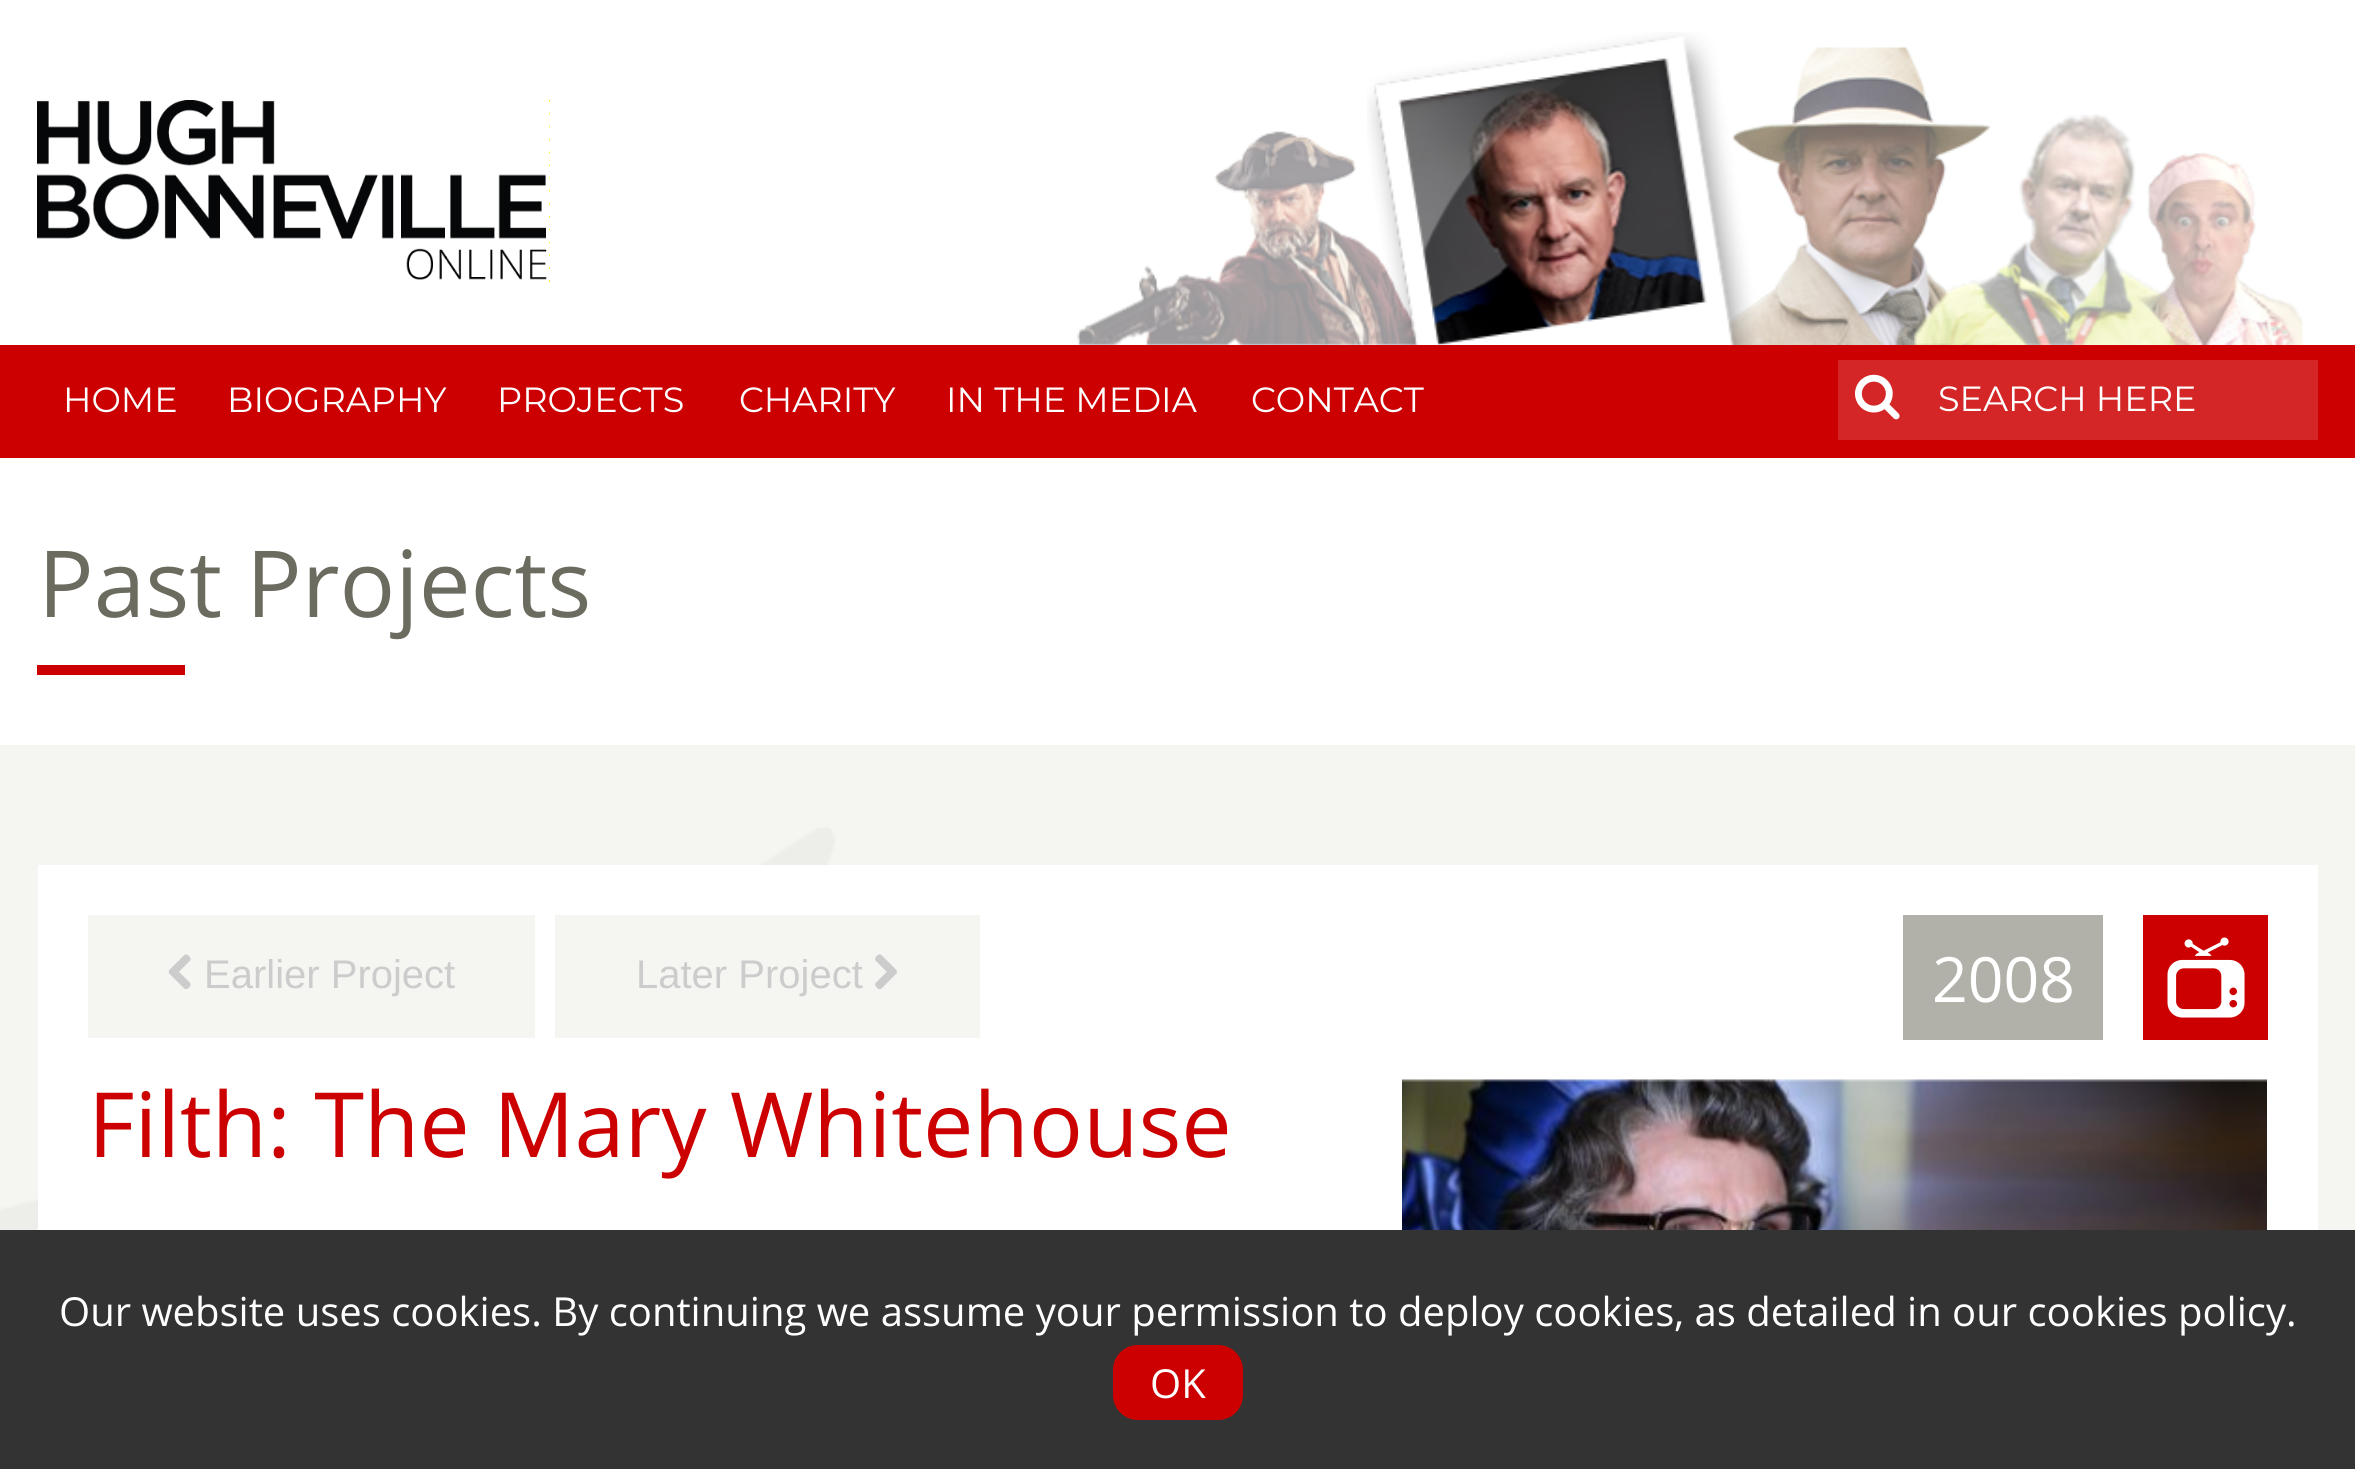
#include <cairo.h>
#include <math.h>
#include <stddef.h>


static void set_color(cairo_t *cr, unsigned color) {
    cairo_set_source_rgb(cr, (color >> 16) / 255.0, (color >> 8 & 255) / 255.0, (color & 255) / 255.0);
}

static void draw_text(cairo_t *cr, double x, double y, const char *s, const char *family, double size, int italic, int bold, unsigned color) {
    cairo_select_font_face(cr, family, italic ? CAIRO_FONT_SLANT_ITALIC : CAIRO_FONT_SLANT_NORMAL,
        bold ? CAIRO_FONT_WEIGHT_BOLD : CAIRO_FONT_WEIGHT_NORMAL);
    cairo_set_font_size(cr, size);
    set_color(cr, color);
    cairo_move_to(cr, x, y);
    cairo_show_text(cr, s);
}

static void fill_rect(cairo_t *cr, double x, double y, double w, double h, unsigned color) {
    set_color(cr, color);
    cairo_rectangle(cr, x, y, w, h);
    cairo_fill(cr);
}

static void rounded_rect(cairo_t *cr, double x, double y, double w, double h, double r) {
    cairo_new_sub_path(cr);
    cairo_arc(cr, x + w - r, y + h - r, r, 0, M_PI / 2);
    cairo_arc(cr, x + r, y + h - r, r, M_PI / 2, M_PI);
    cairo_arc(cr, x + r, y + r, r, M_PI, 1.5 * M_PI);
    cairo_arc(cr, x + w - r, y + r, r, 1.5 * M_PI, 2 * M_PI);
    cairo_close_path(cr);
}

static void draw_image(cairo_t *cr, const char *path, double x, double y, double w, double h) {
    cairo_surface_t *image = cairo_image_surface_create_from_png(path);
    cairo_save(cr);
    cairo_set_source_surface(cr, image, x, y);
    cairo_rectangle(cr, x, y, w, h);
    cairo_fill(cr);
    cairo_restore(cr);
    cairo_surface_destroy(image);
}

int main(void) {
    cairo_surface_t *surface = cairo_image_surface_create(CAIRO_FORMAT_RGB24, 2355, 1469);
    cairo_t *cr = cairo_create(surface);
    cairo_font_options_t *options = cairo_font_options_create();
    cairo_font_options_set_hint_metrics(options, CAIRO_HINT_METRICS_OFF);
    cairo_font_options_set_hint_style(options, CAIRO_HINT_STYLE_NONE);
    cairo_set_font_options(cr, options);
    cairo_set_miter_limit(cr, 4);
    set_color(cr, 0xFFFFFF);
    cairo_paint(cr);
    draw_image(cr, "assets/img1.png", 37, 100, 513, 183);
    draw_image(cr, "assets/img2.png", 1077, 131, 342, 214);
    draw_image(cr, "assets/img4.png", 1726, 47, 275, 298);
    draw_image(cr, "assets/img3.png", 1367, 32, 390, 313);
    draw_image(cr, "assets/img5.png", 1914, 114, 287, 231);
    draw_image(cr, "assets/img6.png", 2137, 152, 166, 193);
    fill_rect(cr, 0, 345, 2355, 113, 0xCC0000);
    draw_text(cr, 63, 412, "HOME", "Montserrat", 35, 0, 0, 0xFFFFFF);
    draw_text(cr, 227, 412, "BIOGRAPHY", "Montserrat", 35, 0, 0, 0xFFFFFF);
    draw_text(cr, 497, 412, "PROJECTS", "Montserrat", 35, 0, 0, 0xFFFFFF);
    draw_text(cr, 739, 412, "CHARITY", "Montserrat", 35, 0, 0, 0xFFFFFF);
    draw_text(cr, 946, 412, "IN THE MEDIA", "Montserrat", 35, 0, 0, 0xFFFFFF);
    draw_text(cr, 1251, 412, "CONTACT", "Montserrat", 35, 0, 0, 0xFFFFFF);
    fill_rect(cr, 1838, 360, 480, 80, 0xD42626);
    draw_image(cr, "assets/img7.png", 1855, 374, 45, 46);
    draw_text(cr, 1938, 411, "SEARCH HERE", "Montserrat", 35, 0, 0, 0xFFFFFF);
    fill_rect(cr, 37, 665, 148, 10, 0xCC0000);
    draw_text(cr, 38, 617, "Past Projects", "Open Sans", 92.5, 0, 0, 0x6B6B5F);
    fill_rect(cr, 0, 745, 2355, 485, 0xF5F5F2);
    draw_image(cr, "assets/img8.png", 0, 827, 838, 403);
    fill_rect(cr, 38, 865, 2280, 365, 0xFFFFFF);
    fill_rect(cr, 88, 915, 447, 123, 0xF5F5F2);
    draw_image(cr, "assets/img9.png", 168, 954, 23, 35);
    draw_text(cr, 204, 988, "Earlier Project", "Liberation Sans", 40, 0, 0, 0xCCCCCC);
    fill_rect(cr, 555, 915, 425, 123, 0xF5F5F2);
    draw_text(cr, 636, 988, "Later Project", "Liberation Sans", 40, 0, 0, 0xCCCCCC);
    draw_image(cr, "assets/img10.png", 875, 954, 22, 36);
    fill_rect(cr, 1903, 915, 200, 125, 0xB1B1A9);
    draw_text(cr, 1932, 1002, "2008", "Open Sans", 62.5, 0, 0, 0xFFFFFF);
    fill_rect(cr, 2143, 915, 125, 125, 0xCC0000);
    draw_image(cr, "assets/img11.png", 2167, 937, 78, 81);
    draw_text(cr, 88, 1157, "Filth: The Mary Whitehouse", "Open Sans", 90, 0, 0, 0xCC0000);
    draw_image(cr, "assets/img12.png", 1402, 1079, 865, 151);
    fill_rect(cr, 0, 1230, 2355, 239, 0x333333);
    draw_text(cr, 59, 1326, "Our website uses cookies. By continuing we assume your permission to deploy cookies, as detailed in our cookies policy.", "Open Sans", 40, 0, 0, 0xFFFFFF);
    set_color(cr, 0xCC0000);
    rounded_rect(cr, 1113, 1345, 130, 75, 25);
    cairo_fill(cr);
    draw_text(cr, 1150, 1398, "OK", "Open Sans", 40, 0, 0, 0xFFFFFF);
    cairo_surface_write_to_png(surface, "output.png");
    cairo_font_options_destroy(options);
    cairo_destroy(cr);
    cairo_surface_destroy(surface);
    return 0;
}
